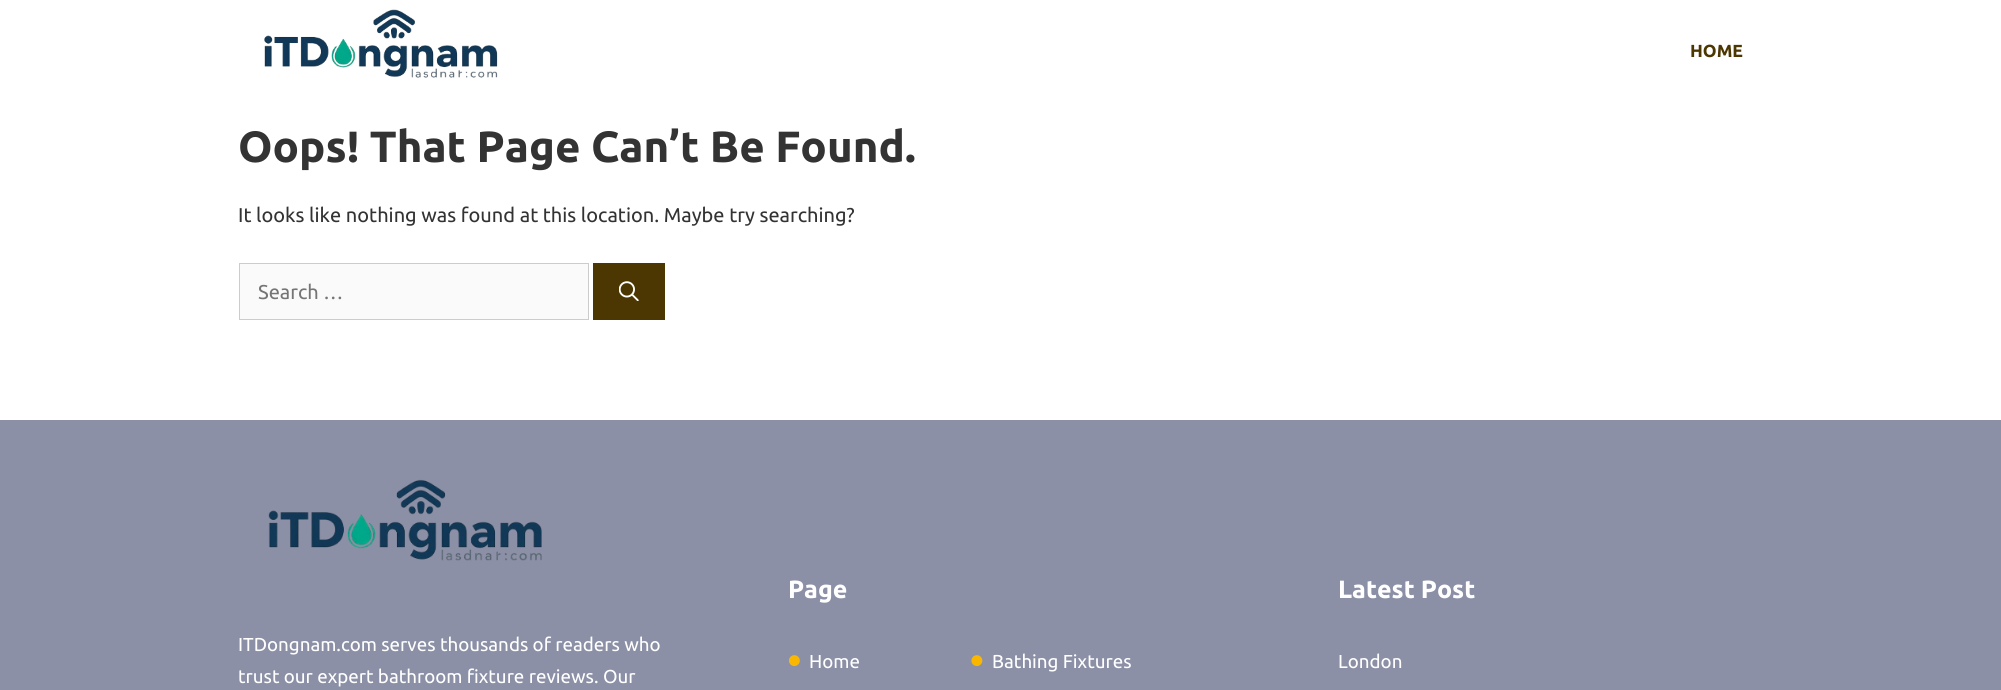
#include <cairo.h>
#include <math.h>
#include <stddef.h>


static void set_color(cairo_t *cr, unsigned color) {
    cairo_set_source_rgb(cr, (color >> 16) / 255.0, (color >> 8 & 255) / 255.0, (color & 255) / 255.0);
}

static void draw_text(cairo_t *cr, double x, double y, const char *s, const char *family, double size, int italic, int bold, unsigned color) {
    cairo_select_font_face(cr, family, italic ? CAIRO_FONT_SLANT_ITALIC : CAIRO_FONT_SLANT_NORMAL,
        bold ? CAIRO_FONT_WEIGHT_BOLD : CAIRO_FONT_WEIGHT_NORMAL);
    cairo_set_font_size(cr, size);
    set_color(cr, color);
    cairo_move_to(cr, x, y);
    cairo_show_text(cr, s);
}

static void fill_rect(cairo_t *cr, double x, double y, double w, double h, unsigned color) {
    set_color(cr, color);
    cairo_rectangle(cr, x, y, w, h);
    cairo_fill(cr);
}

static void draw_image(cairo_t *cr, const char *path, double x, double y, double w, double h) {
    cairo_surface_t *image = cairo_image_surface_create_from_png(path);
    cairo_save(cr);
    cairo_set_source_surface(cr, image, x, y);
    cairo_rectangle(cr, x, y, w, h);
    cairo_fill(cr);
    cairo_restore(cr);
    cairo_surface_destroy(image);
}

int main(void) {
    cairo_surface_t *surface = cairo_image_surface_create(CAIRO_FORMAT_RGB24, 2001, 690);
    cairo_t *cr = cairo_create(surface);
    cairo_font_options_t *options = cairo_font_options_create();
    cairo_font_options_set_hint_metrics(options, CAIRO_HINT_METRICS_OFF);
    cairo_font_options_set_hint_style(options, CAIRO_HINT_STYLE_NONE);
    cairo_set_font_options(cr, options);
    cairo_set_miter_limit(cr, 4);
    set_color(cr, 0xFFFFFF);
    cairo_paint(cr);
    draw_image(cr, "assets/img1.png", 264, 9, 234, 69);
    draw_text(cr, 1690, 57, "HOME", "Ubuntu", 17.5, 0, 1, 0x4C3702);
    draw_text(cr, 238, 162, "Oops! That Page Can’t Be Found.", "Ubuntu", 43.75, 0, 1, 0x333333);
    draw_text(cr, 238, 222, "It looks like nothing was found at this location. Maybe try searching?", "Ubuntu", 20, 0, 0, 0x333333);
    set_color(cr, 0xFAFAFA);
    cairo_rectangle(cr, 239.5, 263.5, 349, 56);
    cairo_fill_preserve(cr);
    set_color(cr, 0xCCCCCC);
    cairo_set_line_width(cr, 1);
    cairo_stroke(cr);
    draw_text(cr, 258, 299, "Search …", "Ubuntu", 20, 0, 0, 0x757575);
    fill_rect(cr, 593, 263, 72, 57, 0x4C3702);
    draw_image(cr, "assets/img2.png", 619, 281, 20, 20);
    fill_rect(cr, 0, 420, 2001, 270, 0x8C90A6);
    draw_image(cr, "assets/img3.png", 268, 479, 274, 82);
    draw_text(cr, 238, 651, "ITDongnam.com serves thousands of readers who", "Ubuntu", 18.75, 0, 0, 0xFFFFFF);
    draw_text(cr, 238, 683, "trust our expert bathroom fixture reviews. Our", "Ubuntu", 18.75, 0, 0, 0xFFFFFF);
    draw_text(cr, 788, 598, "Page", "Ubuntu", 25, 0, 1, 0xFFFFFF);
    draw_image(cr, "assets/img4.png", 789, 655, 11, 11);
    draw_text(cr, 809, 668, "Home", "Ubuntu", 18.75, 0, 0, 0xFFFFFF);
    draw_image(cr, "assets/img5.png", 971, 655, 12, 11);
    draw_text(cr, 992, 668, "Bathing Fixtures", "Ubuntu", 18.75, 0, 0, 0xFFFFFF);
    draw_text(cr, 1338, 598, "Latest Post", "Ubuntu", 25, 0, 1, 0xFFFFFF);
    draw_text(cr, 1338, 668, "London", "Ubuntu", 18.75, 0, 0, 0xFFFFFF);
    cairo_surface_write_to_png(surface, "output.png");
    cairo_font_options_destroy(options);
    cairo_destroy(cr);
    cairo_surface_destroy(surface);
    return 0;
}
